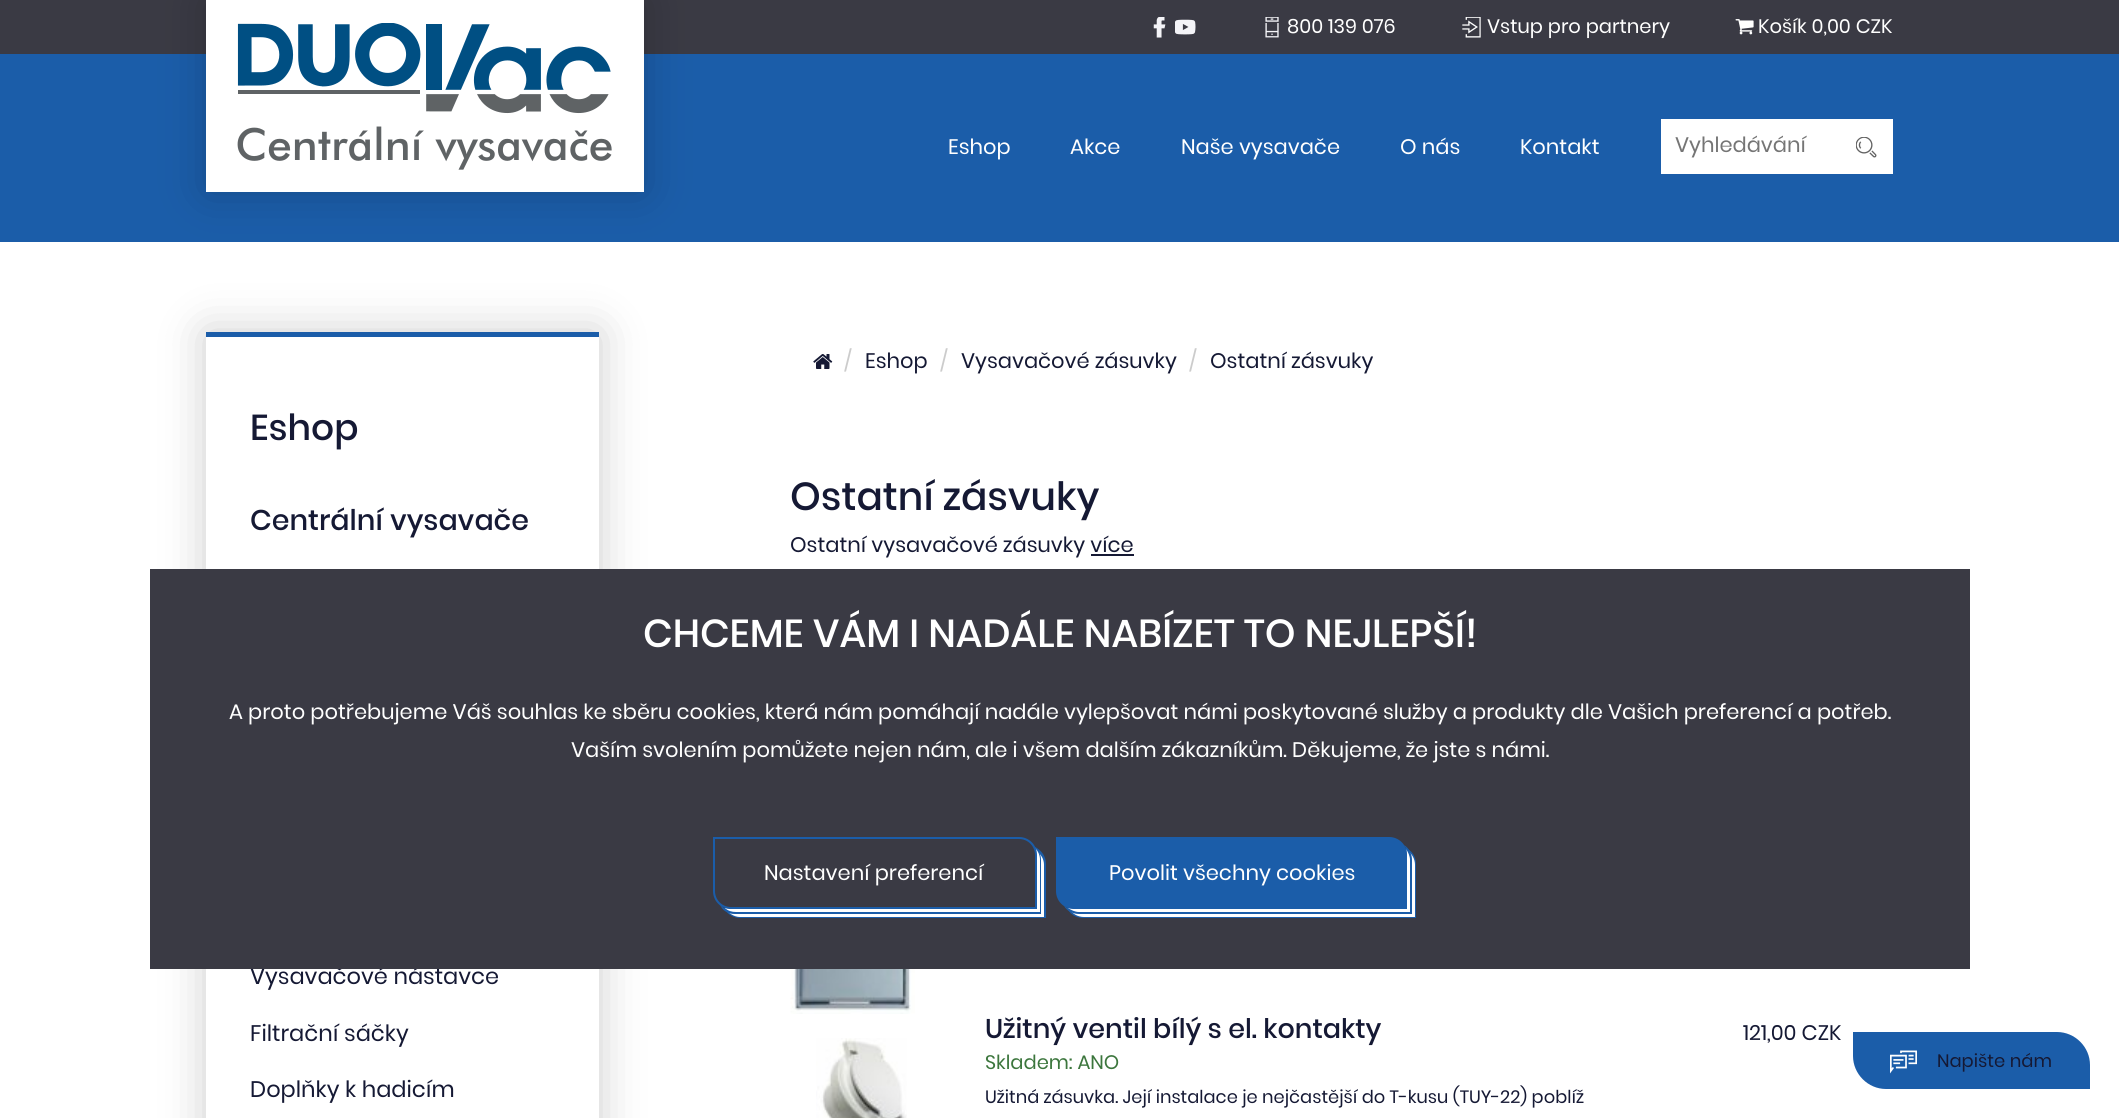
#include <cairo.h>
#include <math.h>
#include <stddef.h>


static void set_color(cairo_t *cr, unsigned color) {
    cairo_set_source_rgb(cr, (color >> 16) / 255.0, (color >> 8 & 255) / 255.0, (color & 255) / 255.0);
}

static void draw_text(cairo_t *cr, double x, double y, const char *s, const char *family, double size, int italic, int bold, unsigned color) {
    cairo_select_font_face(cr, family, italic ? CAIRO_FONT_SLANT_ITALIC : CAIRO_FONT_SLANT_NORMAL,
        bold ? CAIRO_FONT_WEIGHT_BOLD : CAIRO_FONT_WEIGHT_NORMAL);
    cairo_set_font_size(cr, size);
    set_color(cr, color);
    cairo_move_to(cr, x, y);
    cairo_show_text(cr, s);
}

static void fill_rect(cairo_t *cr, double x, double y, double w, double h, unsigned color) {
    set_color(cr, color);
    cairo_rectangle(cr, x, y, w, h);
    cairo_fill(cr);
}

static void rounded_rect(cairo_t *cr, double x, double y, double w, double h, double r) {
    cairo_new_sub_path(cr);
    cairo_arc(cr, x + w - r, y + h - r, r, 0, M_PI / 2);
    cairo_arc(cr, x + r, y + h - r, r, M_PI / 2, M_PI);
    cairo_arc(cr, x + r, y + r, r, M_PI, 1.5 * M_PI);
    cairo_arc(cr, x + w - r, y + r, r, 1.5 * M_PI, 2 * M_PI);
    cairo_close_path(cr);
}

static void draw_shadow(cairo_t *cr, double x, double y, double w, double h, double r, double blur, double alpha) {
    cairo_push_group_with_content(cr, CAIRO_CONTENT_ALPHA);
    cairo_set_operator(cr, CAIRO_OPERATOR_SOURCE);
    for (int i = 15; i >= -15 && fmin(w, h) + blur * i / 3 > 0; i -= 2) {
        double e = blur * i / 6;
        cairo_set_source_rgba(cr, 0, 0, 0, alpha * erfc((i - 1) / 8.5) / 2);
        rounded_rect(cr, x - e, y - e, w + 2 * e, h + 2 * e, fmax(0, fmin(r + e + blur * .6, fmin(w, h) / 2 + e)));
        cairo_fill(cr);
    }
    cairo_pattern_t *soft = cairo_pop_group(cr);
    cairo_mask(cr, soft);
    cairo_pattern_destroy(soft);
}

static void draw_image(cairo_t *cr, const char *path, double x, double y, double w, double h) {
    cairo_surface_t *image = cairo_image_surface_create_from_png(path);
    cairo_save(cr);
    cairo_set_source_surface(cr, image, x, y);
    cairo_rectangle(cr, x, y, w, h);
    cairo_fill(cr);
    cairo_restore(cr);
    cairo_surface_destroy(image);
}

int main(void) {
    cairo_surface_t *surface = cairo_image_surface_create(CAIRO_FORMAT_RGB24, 2119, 1118);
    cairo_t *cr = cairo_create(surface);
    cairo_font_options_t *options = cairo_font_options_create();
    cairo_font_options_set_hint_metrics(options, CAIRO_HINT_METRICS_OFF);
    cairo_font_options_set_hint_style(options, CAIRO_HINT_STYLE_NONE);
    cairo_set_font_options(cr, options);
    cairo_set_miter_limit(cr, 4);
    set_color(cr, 0xFFFFFF);
    cairo_paint(cr);
    fill_rect(cr, 0, 0, 2119, 54, 0x3A3A44);
    fill_rect(cr, 0, 54, 2119, 188, 0x1B5DA9);
    set_color(cr, 0x000000);
    draw_shadow(cr, 206, 0, 438, 192, 0, 22.5, 0.2);
    fill_rect(cr, 206, 0, 438, 192, 0xFFFFFF);
    draw_image(cr, "assets/img1.png", 237, 23, 375, 147);
    draw_image(cr, "assets/img2.png", 1153, 17, 13, 21);
    draw_image(cr, "assets/img3.png", 1175, 19, 21, 16);
    draw_image(cr, "assets/img4.png", 1265, 17, 14, 21);
    draw_text(cr, 1287, 33, "800 139 076", "Poppins", 19.5, 0, 0, 0xFFFFFF);
    draw_image(cr, "assets/img5.png", 1462, 17, 19, 21);
    draw_text(cr, 1487, 33, "Vstup pro partnery", "Poppins", 19.5, 0, 0, 0xFFFFFF);
    draw_image(cr, "assets/img6.png", 1735, 19, 19, 16);
    draw_text(cr, 1758, 33, "Košík 0,00 CZK", "Poppins", 19.5, 0, 0, 0xFFFFFF);
    draw_text(cr, 948, 154, "Eshop", "Poppins", 21, 0, 0, 0xFFFFFF);
    draw_text(cr, 1070, 154, "Akce", "Poppins", 21, 0, 0, 0xFFFFFF);
    draw_text(cr, 1181, 154, "Naše vysavače", "Poppins", 21, 0, 0, 0xFFFFFF);
    draw_text(cr, 1400, 154, "O nás", "Poppins", 21, 0, 0, 0xFFFFFF);
    draw_text(cr, 1520, 154, "Kontakt", "Poppins", 21, 0, 0, 0xFFFFFF);
    fill_rect(cr, 1661, 119, 232, 55, 0xFFFFFF);
    draw_image(cr, "assets/img7.png", 1856, 137, 21, 21);
    draw_text(cr, 1675, 152, "Vyhledávání", "Poppins", 21, 0, 0, 0x757575);
    set_color(cr, 0x000000);
    draw_shadow(cr, 206, 332, 393, 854, 0, 22.5, 0.2);
    fill_rect(cr, 206, 337, 393, 781, 0xFFFFFF);
    fill_rect(cr, 206, 332, 393, 5, 0x1B5DA9);
    draw_text(cr, 250, 440, "Eshop", "Poppins Medium", 36, 0, 0, 0x151934);
    draw_text(cr, 250, 530, "Centrální vysavače", "Poppins Medium", 28.5, 0, 0, 0x151934);
    draw_text(cr, 250, 984, "Vysavačové nástavce", "Poppins", 22.5, 0, 0, 0x151934);
    draw_text(cr, 250, 1041, "Filtrační sáčky", "Poppins", 22.5, 0, 0, 0x151934);
    draw_text(cr, 250, 1097, "Doplňky k hadicím", "Poppins", 22.5, 0, 0, 0x151934);
    draw_image(cr, "assets/img8.png", 813, 354, 20, 15);
    draw_text(cr, 844, 368, "/", "Poppins", 21, 0, 0, 0xCCCCCC);
    draw_text(cr, 865, 368, "Eshop", "Poppins", 21, 0, 0, 0x151934);
    draw_text(cr, 940, 368, "/", "Poppins", 21, 0, 0, 0xCCCCCC);
    draw_text(cr, 961, 368, "Vysavačové zásuvky", "Poppins", 21, 0, 0, 0x151934);
    draw_text(cr, 1189, 368, "/", "Poppins", 21, 0, 0, 0xCCCCCC);
    draw_text(cr, 1210, 368, "Ostatní zásvuky", "Poppins", 21, 0, 0, 0x151934);
    draw_text(cr, 790, 510, "Ostatní zásvuky", "Poppins Medium", 39, 0, 0, 0x151934);
    draw_text(cr, 790, 552, "Ostatní vysavačové zásuvky více", "Poppins", 21, 0, 0, 0x151934);
    fill_rect(cr, 1091, 554, 43, 2, 0x151934);
    draw_image(cr, "assets/img9.png", 790, 969, 125, 45);
    draw_text(cr, 985, 1038, "Užitný ventil bílý s el. kontakty", "Poppins Medium", 27, 0, 0, 0x151934);
    draw_text(cr, 985, 1069, "Skladem: ANO", "Poppins", 19.5, 0, 0, 0x3C763D);
    draw_text(cr, 985, 1103, "Užitná zásuvka. Její instalace je nejčastější do T-kusu (TUY-22) poblíž", "Poppins", 17.85, 0, 0, 0x151934);
    draw_text(cr, 1743, 1040, "121,00 CZK", "Poppins", 21, 0, 0, 0x151934);
    draw_image(cr, "assets/img10.png", 816, 1038, 91, 80);
    fill_rect(cr, 150, 569, 1820, 400, 0x3A3A44);
    draw_text(cr, 643, 647, "CHCEME VÁM I NADÁLE NABÍZET TO NEJLEPŠÍ!", "Poppins Medium", 39, 0, 0, 0xFFFFFF);
    draw_text(cr, 229, 719, "A proto potřebujeme Váš souhlas ke sběru cookies, která nám pomáhají nadále vylepšovat námi poskytované služby a produkty dle Vašich preferencí a potřeb.", "Poppins", 21, 0, 0, 0xFFFFFF);
    draw_text(cr, 571, 757, "Vaším svolením pomůžete nejen nám, ale i všem dalším zákazníkům. Děkujeme, že jste s námi.", "Poppins", 21, 0, 0, 0xFFFFFF);
    set_color(cr, 0x1B5DA9);
    cairo_new_path(cr);
    cairo_move_to(cr, 724, 908);
    cairo_curve_to(cr, 727, 914, 733, 918, 740, 918);
    cairo_line_to(cr, 1046, 918);
    cairo_line_to(cr, 1046, 864);
    cairo_curve_to(cr, 1046, 856, 1041, 850, 1035, 847);
    cairo_curve_to(cr, 1036, 850, 1036, 852, 1036, 855);
    cairo_line_to(cr, 1036, 909);
    cairo_line_to(cr, 730, 909);
    cairo_close_path(cr);
    cairo_fill(cr);
    set_color(cr, 0xFFFFFF);
    cairo_new_path(cr);
    cairo_move_to(cr, 725, 908);
    cairo_curve_to(cr, 728, 913, 734, 917, 740, 917);
    cairo_line_to(cr, 1044, 917);
    cairo_line_to(cr, 1044, 865);
    cairo_curve_to(cr, 1044, 859, 1041, 854, 1036, 851);
    cairo_line_to(cr, 1036, 855);
    cairo_line_to(cr, 1036, 909);
    cairo_line_to(cr, 730, 909);
    cairo_close_path(cr);
    cairo_fill(cr);
    set_color(cr, 0x1B5DA9);
    cairo_new_path(cr);
    cairo_move_to(cr, 720, 905);
    cairo_curve_to(cr, 723, 911, 728, 914, 735, 914);
    cairo_line_to(cr, 1041, 914);
    cairo_line_to(cr, 1041, 860);
    cairo_curve_to(cr, 1041, 854, 1038, 849, 1034, 846);
    cairo_curve_to(cr, 1036, 848, 1036, 852, 1036, 855);
    cairo_line_to(cr, 1036, 909);
    cairo_line_to(cr, 730, 909);
    cairo_curve_to(cr, 726, 909, 723, 908, 720, 905);
    cairo_close_path(cr);
    cairo_fill(cr);
    set_color(cr, 0xFFFFFF);
    cairo_new_path(cr);
    cairo_move_to(cr, 725, 908);
    cairo_curve_to(cr, 728, 911, 732, 912, 736, 912);
    cairo_line_to(cr, 1040, 912);
    cairo_line_to(cr, 1040, 860);
    cairo_curve_to(cr, 1040, 855, 1038, 851, 1035, 848);
    cairo_curve_to(cr, 1036, 850, 1036, 853, 1036, 855);
    cairo_line_to(cr, 1036, 909);
    cairo_line_to(cr, 730, 909);
    cairo_close_path(cr);
    cairo_fill(cr);
    cairo_new_path(cr);
    cairo_move_to(cr, 714, 838);
    cairo_line_to(cr, 1019, 838);
    cairo_curve_to(cr, 1028.5, 838, 1036, 845.5, 1036, 855);
    cairo_line_to(cr, 1036, 908);
    cairo_line_to(cr, 731, 908);
    cairo_curve_to(cr, 721.5, 908, 714, 900.5, 714, 891);
    cairo_close_path(cr);
    set_color(cr, 0x1B5DA9);
    cairo_stroke(cr);
    draw_text(cr, 764, 880, "Nastavení preferencí", "Poppins", 21, 0, 0, 0xFFFFFF);
    set_color(cr, 0x1B5DA9);
    cairo_new_path(cr);
    cairo_move_to(cr, 1067, 907);
    cairo_curve_to(cr, 1069, 914, 1076, 918, 1083, 918);
    cairo_line_to(cr, 1416, 918);
    cairo_line_to(cr, 1416, 864);
    cairo_curve_to(cr, 1416, 857, 1412, 850, 1405, 848);
    cairo_curve_to(cr, 1406, 850, 1407, 852, 1407, 855);
    cairo_line_to(cr, 1407, 909);
    cairo_line_to(cr, 1074, 909);
    cairo_curve_to(cr, 1071, 909, 1069, 908, 1067, 907);
    cairo_close_path(cr);
    cairo_fill(cr);
    set_color(cr, 0xFFFFFF);
    cairo_new_path(cr);
    cairo_move_to(cr, 1069, 908);
    cairo_curve_to(cr, 1072, 914, 1078, 917, 1084, 917);
    cairo_line_to(cr, 1415, 917);
    cairo_line_to(cr, 1415, 865);
    cairo_curve_to(cr, 1415, 859, 1412, 853, 1406, 850);
    cairo_line_to(cr, 1407, 855);
    cairo_line_to(cr, 1407, 909);
    cairo_line_to(cr, 1074, 909);
    cairo_close_path(cr);
    cairo_fill(cr);
    set_color(cr, 0x1B5DA9);
    cairo_new_path(cr);
    cairo_move_to(cr, 1064, 906);
    cairo_curve_to(cr, 1067, 911, 1073, 914, 1079, 914);
    cairo_line_to(cr, 1412, 914);
    cairo_line_to(cr, 1412, 860);
    cairo_curve_to(cr, 1412, 854, 1409, 848, 1404, 845);
    cairo_curve_to(cr, 1406, 848, 1407, 851, 1407, 855);
    cairo_line_to(cr, 1407, 909);
    cairo_line_to(cr, 1074, 909);
    cairo_curve_to(cr, 1070, 909, 1067, 908, 1064, 906);
    cairo_close_path(cr);
    cairo_fill(cr);
    set_color(cr, 0xFFFFFF);
    cairo_new_path(cr);
    cairo_move_to(cr, 1068, 908);
    cairo_curve_to(cr, 1071, 910, 1075, 912, 1079, 912);
    cairo_line_to(cr, 1410, 912);
    cairo_line_to(cr, 1410, 860);
    cairo_curve_to(cr, 1410, 856, 1408, 852, 1406, 849);
    cairo_curve_to(cr, 1407, 851, 1407, 853, 1407, 855);
    cairo_line_to(cr, 1407, 909);
    cairo_line_to(cr, 1074, 909);
    cairo_close_path(cr);
    cairo_fill(cr);
    set_color(cr, 0x1B5DA9);
    cairo_new_path(cr);
    cairo_move_to(cr, 1057, 838);
    cairo_line_to(cr, 1389, 838);
    cairo_curve_to(cr, 1398.5, 838, 1406, 845.5, 1406, 855);
    cairo_line_to(cr, 1406, 908);
    cairo_line_to(cr, 1074, 908);
    cairo_curve_to(cr, 1064.5, 908, 1057, 900.5, 1057, 891);
    cairo_close_path(cr);
    cairo_fill_preserve(cr);
    cairo_stroke(cr);
    draw_text(cr, 1109, 880, "Povolit všechny cookies", "Poppins", 21, 0, 0, 0xFFFFFF);
    set_color(cr, 0x1B5DA9);
    cairo_new_path(cr);
    cairo_move_to(cr, 1853, 1032);
    cairo_line_to(cr, 2057, 1032);
    cairo_curve_to(cr, 2075, 1032, 2090, 1047, 2090, 1065);
    cairo_line_to(cr, 2090, 1089);
    cairo_line_to(cr, 1886, 1089);
    cairo_curve_to(cr, 1868, 1089, 1853, 1074, 1853, 1056);
    cairo_close_path(cr);
    cairo_fill(cr);
    draw_image(cr, "assets/img11.png", 1890, 1050, 27, 24);
    draw_text(cr, 1937, 1067, "Napište nám", "Poppins", 18, 0, 0, 0x151934);
    cairo_surface_write_to_png(surface, "output.png");
    cairo_font_options_destroy(options);
    cairo_destroy(cr);
    cairo_surface_destroy(surface);
    return 0;
}
